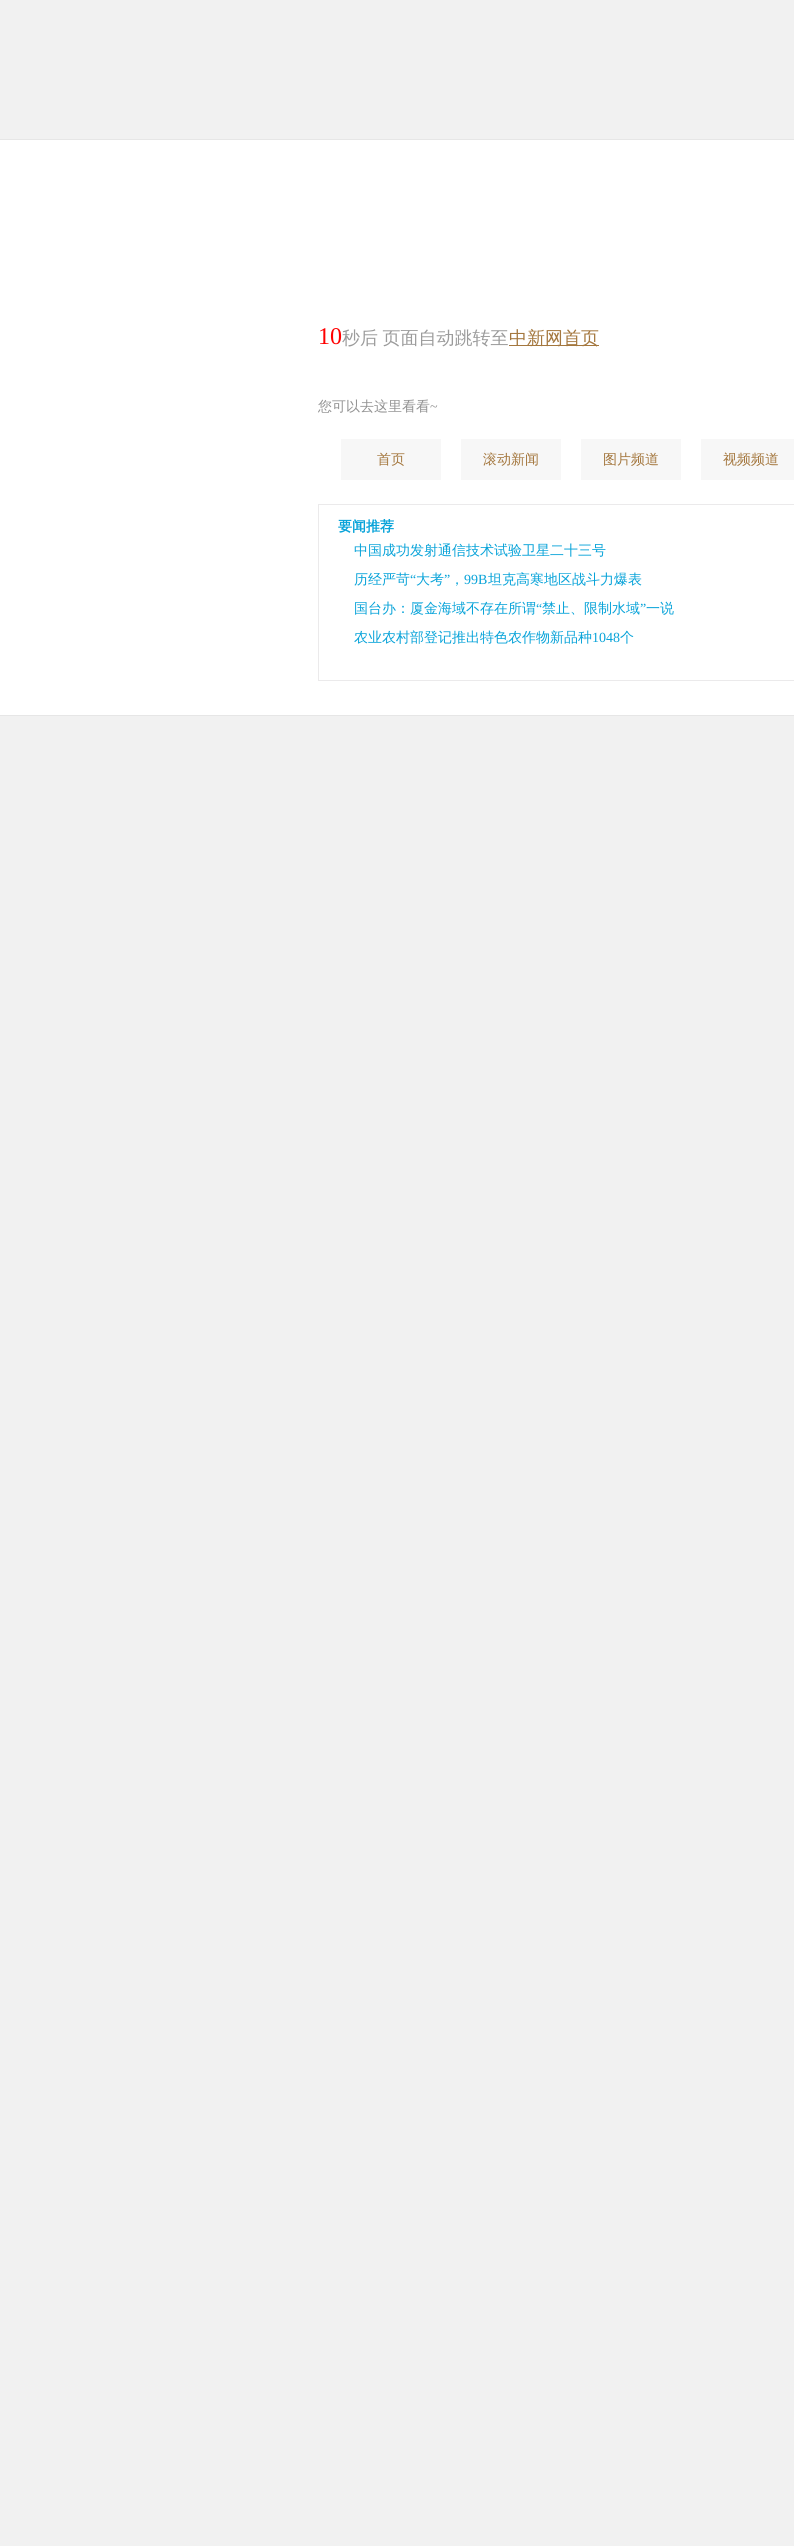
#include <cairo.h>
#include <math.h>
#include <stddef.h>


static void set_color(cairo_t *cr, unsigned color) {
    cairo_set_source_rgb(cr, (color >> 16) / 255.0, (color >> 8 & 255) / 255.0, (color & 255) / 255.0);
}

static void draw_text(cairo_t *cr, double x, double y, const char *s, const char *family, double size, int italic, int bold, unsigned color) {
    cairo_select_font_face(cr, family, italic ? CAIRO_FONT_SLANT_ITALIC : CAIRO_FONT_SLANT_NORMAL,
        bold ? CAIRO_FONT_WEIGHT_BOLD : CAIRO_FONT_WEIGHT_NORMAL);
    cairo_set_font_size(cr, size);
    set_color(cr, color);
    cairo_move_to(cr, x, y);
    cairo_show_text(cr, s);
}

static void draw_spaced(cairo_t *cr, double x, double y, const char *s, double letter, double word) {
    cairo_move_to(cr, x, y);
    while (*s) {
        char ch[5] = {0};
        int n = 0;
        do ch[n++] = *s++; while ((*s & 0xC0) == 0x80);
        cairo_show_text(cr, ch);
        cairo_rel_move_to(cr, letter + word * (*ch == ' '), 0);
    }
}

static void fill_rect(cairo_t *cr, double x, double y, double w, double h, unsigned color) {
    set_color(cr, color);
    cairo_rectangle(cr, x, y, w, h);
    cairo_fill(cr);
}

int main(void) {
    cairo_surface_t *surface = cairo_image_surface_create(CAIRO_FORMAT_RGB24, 794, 2546);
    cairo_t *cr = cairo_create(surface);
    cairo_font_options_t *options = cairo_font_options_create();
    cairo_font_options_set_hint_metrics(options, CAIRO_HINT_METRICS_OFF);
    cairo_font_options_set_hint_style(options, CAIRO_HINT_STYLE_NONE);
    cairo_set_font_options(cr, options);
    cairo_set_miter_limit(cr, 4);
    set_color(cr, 0xF1F1F1);
    cairo_paint(cr);
    fill_rect(cr, 0, 140, 794, 575, 0xFFFFFF);
    fill_rect(cr, 0, 139, 794, 1, 0xE6E6E6);
    fill_rect(cr, 0, 715, 794, 1, 0xE6E6E6);
    draw_text(cr, 318, 344, "10", "Liberation Serif", 24, 0, 0, 0xFF0000);
    cairo_select_font_face(cr, "WenQuanYi Zen Hei Medium", CAIRO_FONT_SLANT_NORMAL, CAIRO_FONT_WEIGHT_NORMAL);
    cairo_set_font_size(cr, 18);
    set_color(cr, 0x9B9B9B);
    draw_spaced(cr, 342, 344, "秒后 页面自动跳转至", 0, -1);
    fill_rect(cr, 509, 345, 90, 1, 0xA4773E);
    draw_text(cr, 509, 344, "中新网首页", "WenQuanYi Zen Hei Medium", 18, 0, 0, 0xA4773E);
    draw_text(cr, 318, 411, "您可以去这里看看", "WenQuanYi Zen Hei Medium", 14, 0, 0, 0x929292);
    draw_text(cr, 430, 411, "~", "Liberation Serif", 14, 0, 0, 0x929292);
    fill_rect(cr, 341, 439, 100, 41, 0xF7F7F7);
    draw_text(cr, 377, 464, "首页", "WenQuanYi Zen Hei Medium", 14, 0, 0, 0xA4773E);
    fill_rect(cr, 461, 439, 100, 41, 0xF7F7F7);
    draw_text(cr, 483, 464, "滚动新闻", "WenQuanYi Zen Hei Medium", 14, 0, 0, 0xA4773E);
    fill_rect(cr, 581, 439, 100, 41, 0xF7F7F7);
    draw_text(cr, 603, 464, "图片频道", "WenQuanYi Zen Hei Medium", 14, 0, 0, 0xA4773E);
    fill_rect(cr, 701, 439, 93, 41, 0xF7F7F7);
    draw_text(cr, 723, 464, "视频频道", "WenQuanYi Zen Hei Medium", 14, 0, 0, 0xA4773E);
    cairo_rectangle(cr, 318.5, 504.5, 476, 176);
    set_color(cr, 0xEBEAEB);
    cairo_set_line_width(cr, 1);
    cairo_stroke(cr);
    draw_text(cr, 338, 531, "要闻推荐", "WenQuanYi Zen Hei", 14, 0, 1, 0x08A3D9);
    draw_text(cr, 354, 555, "中国成功发射通信技术试验卫星二十三号", "WenQuanYi Zen Hei Medium", 14, 0, 0, 0x08A3D9);
    draw_text(cr, 354, 584, "历经严苛", "WenQuanYi Zen Hei Medium", 14, 0, 0, 0x08A3D9);
    draw_text(cr, 410, 584, "“", "Liberation Serif", 14, 0, 0, 0x08A3D9);
    draw_text(cr, 416, 584, "大考", "WenQuanYi Zen Hei Medium", 14, 0, 0, 0x08A3D9);
    draw_text(cr, 444, 584, "”", "Liberation Serif", 14, 0, 0, 0x08A3D9);
    draw_text(cr, 450, 584, "，", "WenQuanYi Zen Hei Medium", 14, 0, 0, 0x08A3D9);
    draw_text(cr, 464, 584, "99B", "Liberation Serif", 14, 0, 0, 0x08A3D9);
    draw_text(cr, 488, 584, "坦克高寒地区战斗力爆表", "WenQuanYi Zen Hei Medium", 14, 0, 0, 0x08A3D9);
    draw_text(cr, 354, 613, "国台办：厦金海域不存在所谓", "WenQuanYi Zen Hei Medium", 14, 0, 0, 0x08A3D9);
    draw_text(cr, 536, 613, "“", "Liberation Serif", 14, 0, 0, 0x08A3D9);
    draw_text(cr, 542, 613, "禁止、限制水域", "WenQuanYi Zen Hei Medium", 14, 0, 0, 0x08A3D9);
    draw_text(cr, 640, 613, "”", "Liberation Serif", 14, 0, 0, 0x08A3D9);
    draw_text(cr, 646, 613, "一说", "WenQuanYi Zen Hei Medium", 14, 0, 0, 0x08A3D9);
    draw_text(cr, 354, 642, "农业农村部登记推出特色农作物新品种", "WenQuanYi Zen Hei Medium", 14, 0, 0, 0x08A3D9);
    draw_text(cr, 592, 642, "1048", "Liberation Serif", 14, 0, 0, 0x08A3D9);
    draw_text(cr, 620, 642, "个", "WenQuanYi Zen Hei Medium", 14, 0, 0, 0x08A3D9);
    cairo_surface_write_to_png(surface, "output.png");
    cairo_font_options_destroy(options);
    cairo_destroy(cr);
    cairo_surface_destroy(surface);
    return 0;
}
